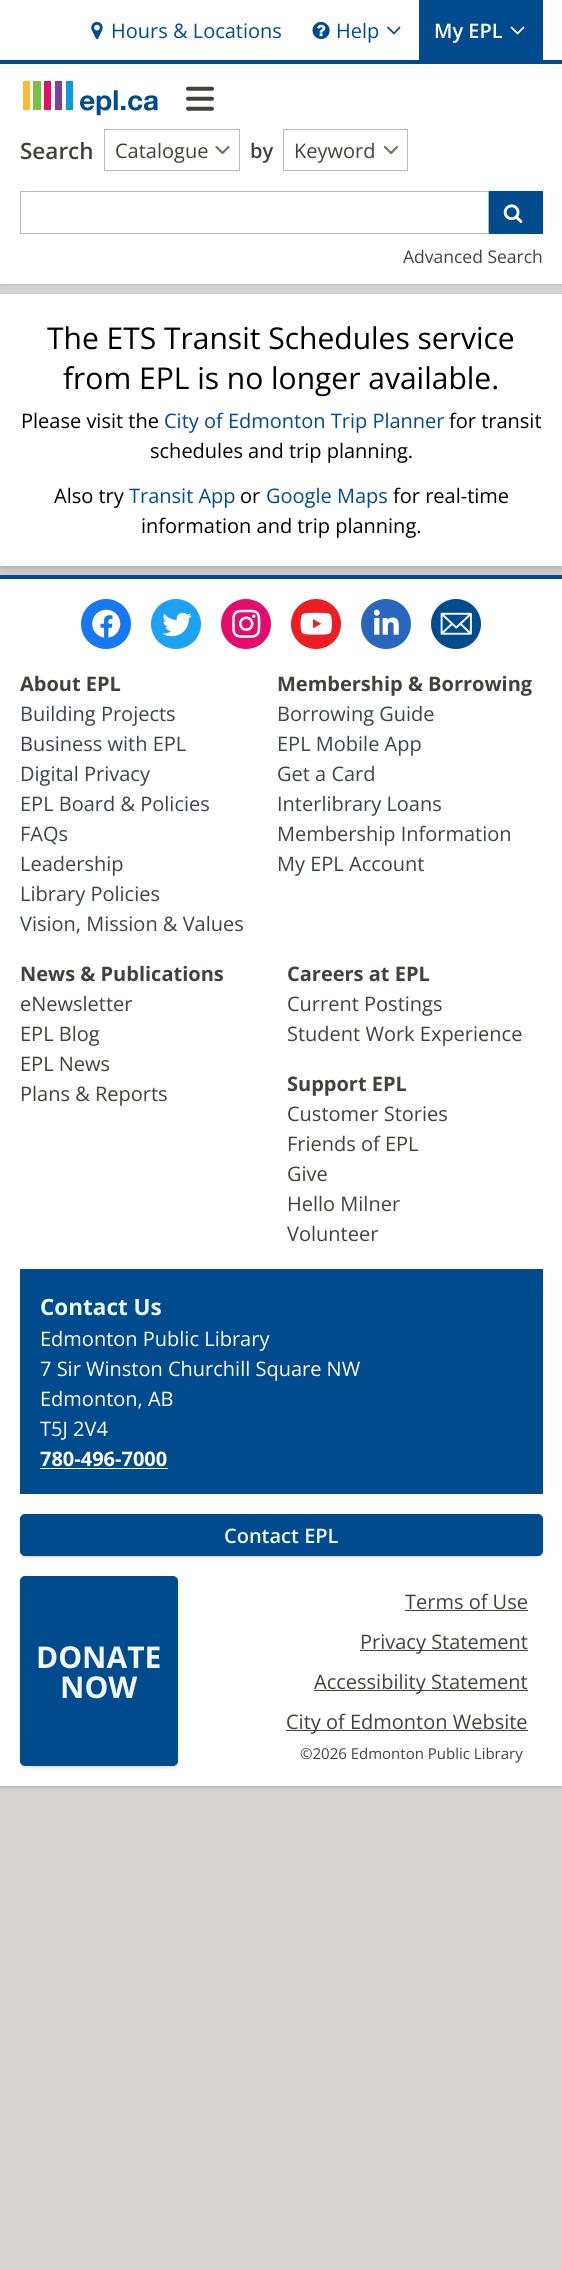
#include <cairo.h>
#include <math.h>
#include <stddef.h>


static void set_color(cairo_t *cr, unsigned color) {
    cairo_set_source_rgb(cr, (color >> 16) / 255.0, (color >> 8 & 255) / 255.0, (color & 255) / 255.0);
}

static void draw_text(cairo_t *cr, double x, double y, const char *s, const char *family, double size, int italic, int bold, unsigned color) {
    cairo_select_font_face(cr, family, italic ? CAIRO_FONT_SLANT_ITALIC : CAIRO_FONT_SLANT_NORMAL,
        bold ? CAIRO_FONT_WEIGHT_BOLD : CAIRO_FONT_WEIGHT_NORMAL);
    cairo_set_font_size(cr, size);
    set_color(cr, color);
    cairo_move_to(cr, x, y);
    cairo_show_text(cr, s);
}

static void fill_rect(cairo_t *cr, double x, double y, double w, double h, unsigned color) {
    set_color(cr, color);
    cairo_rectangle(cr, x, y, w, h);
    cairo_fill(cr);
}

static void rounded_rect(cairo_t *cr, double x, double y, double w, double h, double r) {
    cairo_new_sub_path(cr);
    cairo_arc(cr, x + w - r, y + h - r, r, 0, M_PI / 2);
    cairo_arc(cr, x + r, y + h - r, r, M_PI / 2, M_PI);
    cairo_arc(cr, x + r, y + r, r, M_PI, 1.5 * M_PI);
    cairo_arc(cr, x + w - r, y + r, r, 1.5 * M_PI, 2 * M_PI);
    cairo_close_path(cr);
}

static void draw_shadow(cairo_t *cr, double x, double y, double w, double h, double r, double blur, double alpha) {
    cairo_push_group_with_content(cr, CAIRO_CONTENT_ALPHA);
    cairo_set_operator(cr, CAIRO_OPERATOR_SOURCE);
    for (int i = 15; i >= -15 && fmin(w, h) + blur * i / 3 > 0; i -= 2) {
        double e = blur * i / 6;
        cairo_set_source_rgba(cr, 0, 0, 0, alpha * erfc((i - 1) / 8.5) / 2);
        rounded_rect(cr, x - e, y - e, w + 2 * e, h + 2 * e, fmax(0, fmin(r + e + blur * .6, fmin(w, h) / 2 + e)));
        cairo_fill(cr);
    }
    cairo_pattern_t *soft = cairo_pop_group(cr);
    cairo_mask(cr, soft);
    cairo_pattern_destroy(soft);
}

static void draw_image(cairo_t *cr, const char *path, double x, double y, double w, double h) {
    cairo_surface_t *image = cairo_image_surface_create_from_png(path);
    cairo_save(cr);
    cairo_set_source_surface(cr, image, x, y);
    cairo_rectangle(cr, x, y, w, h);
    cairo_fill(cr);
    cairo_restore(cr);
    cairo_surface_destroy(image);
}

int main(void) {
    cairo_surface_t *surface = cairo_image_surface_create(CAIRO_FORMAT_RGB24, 562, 2269);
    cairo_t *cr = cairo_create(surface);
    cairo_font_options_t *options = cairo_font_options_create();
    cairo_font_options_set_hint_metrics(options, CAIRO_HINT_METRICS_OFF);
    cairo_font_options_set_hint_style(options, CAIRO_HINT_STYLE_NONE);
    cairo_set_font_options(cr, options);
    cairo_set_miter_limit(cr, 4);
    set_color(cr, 0xD6D3D1);
    cairo_paint(cr);
    set_color(cr, 0x000000);
    draw_shadow(cr, 1, 3, 560, 281, 0, 1, 0.1);
    draw_shadow(cr, 0, 1, 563, 284, 0, 2, 0.1);
    fill_rect(cr, 0, 0, 562, 284, 0xFFFFFF);
    fill_rect(cr, 0, 60, 562, 4, 0x004B8D);
    draw_image(cr, "assets/img1.png", 91, 21, 12, 18);
    draw_text(cr, 111, 38, "Hours & Locations", "Open Sans", 20, 0, 0, 0x004B8D);
    draw_image(cr, "assets/img2.png", 312, 21, 18, 19);
    draw_text(cr, 336, 38, "Help", "Open Sans", 20, 0, 0, 0x004B8D);
    cairo_new_path(cr);
    cairo_move_to(cr, 399.5, 27.5);
    cairo_line_to(cr, 394, 33.5);
    cairo_line_to(cr, 388, 27.5);
    cairo_set_line_width(cr, 1.7);
    cairo_set_line_cap(cr, CAIRO_LINE_CAP_ROUND);
    cairo_set_line_join(cr, CAIRO_LINE_JOIN_ROUND);
    cairo_stroke(cr);
    fill_rect(cr, 419, 0, 124, 60, 0x004B8D);
    draw_text(cr, 434, 38, "My EPL", "Open Sans SemiBold", 20, 0, 0, 0xFFFFFF);
    cairo_new_path(cr);
    cairo_move_to(cr, 523.5, 27.5);
    cairo_line_to(cr, 517.5, 33.5);
    cairo_line_to(cr, 511.5, 27.5);
    cairo_stroke(cr);
    draw_image(cr, "assets/img3.png", 23, 81, 135, 35);
    draw_image(cr, "assets/img4.png", 186, 86, 28, 25);
    draw_text(cr, 20, 159, "Search", "Open Sans SemiBold", 22.5, 0, 0, 0x44403C);
    cairo_new_path(cr);
    cairo_move_to(cr, 216.5, 147);
    cairo_line_to(cr, 222.5, 153);
    cairo_line_to(cr, 228.5, 147);
    set_color(cr, 0x78716C);
    cairo_set_line_width(cr, 2.2);
    cairo_stroke(cr);
    cairo_rectangle(cr, 104.5, 129.5, 135, 41);
    set_color(cr, 0xBEB9B6);
    cairo_set_line_width(cr, 1);
    cairo_set_line_cap(cr, CAIRO_LINE_CAP_BUTT);
    cairo_set_line_join(cr, CAIRO_LINE_JOIN_MITER);
    cairo_stroke(cr);
    draw_text(cr, 115, 158, "Catalogue", "Open Sans", 20, 0, 0, 0x44403C);
    draw_text(cr, 250, 158, "by", "Open Sans SemiBold", 20, 0, 0, 0x44403C);
    cairo_new_path(cr);
    cairo_move_to(cr, 385, 147);
    cairo_line_to(cr, 391, 153);
    cairo_line_to(cr, 397, 147);
    set_color(cr, 0x78716C);
    cairo_set_line_width(cr, 2.2);
    cairo_set_line_cap(cr, CAIRO_LINE_CAP_ROUND);
    cairo_set_line_join(cr, CAIRO_LINE_JOIN_ROUND);
    cairo_stroke(cr);
    cairo_rectangle(cr, 283.5, 129.5, 124, 41);
    set_color(cr, 0xBEB9B6);
    cairo_set_line_width(cr, 1);
    cairo_set_line_cap(cr, CAIRO_LINE_CAP_BUTT);
    cairo_set_line_join(cr, CAIRO_LINE_JOIN_MITER);
    cairo_stroke(cr);
    draw_text(cr, 294, 158, "Keyword", "Open Sans", 20, 0, 0, 0x44403C);
    cairo_rectangle(cr, 20.5, 191.5, 468, 42);
    set_color(cr, 0xBEB9B6);
    cairo_stroke(cr);
    fill_rect(cr, 489, 191, 54, 43, 0x004B8D);
    draw_image(cr, "assets/img5.png", 503, 204, 20, 19);
    draw_text(cr, 403, 263, "Advanced Search", "Open Sans", 17.5, 0, 0, 0x44403C);
    set_color(cr, 0x000000);
    draw_shadow(cr, 0, 298, 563, 272, 0, 4, 0.16);
    fill_rect(cr, 0, 294, 562, 272, 0xFFFFFF);
    draw_text(cr, 47, 349, "The ETS Transit Schedules service", "Open Sans", 30, 0, 0, 0x000000);
    draw_text(cr, 63, 389, "from EPL is no longer available.", "Open Sans", 30, 0, 0, 0x000000);
    draw_text(cr, 21, 428, "Please visit the", "Open Sans", 20, 0, 0, 0x000000);
    draw_text(cr, 164, 428, "City of Edmonton Trip Planner", "Open Sans", 20, 0, 0, 0x004B8D);
    draw_text(cr, 449, 428, "for transit", "Open Sans", 20, 0, 0, 0x000000);
    draw_text(cr, 150, 458, "schedules and trip planning.", "Open Sans", 20, 0, 0, 0x000000);
    draw_text(cr, 54, 503, "Also try", "Open Sans", 20, 0, 0, 0x000000);
    draw_text(cr, 129, 503, "Transit App", "Open Sans", 20, 0, 0, 0x004B8D);
    draw_text(cr, 240, 503, "or", "Open Sans", 20, 0, 0, 0x000000);
    draw_text(cr, 266, 503, "Google Maps", "Open Sans", 20, 0, 0, 0x004B8D);
    draw_text(cr, 393, 503, "for real-time", "Open Sans", 20, 0, 0, 0x000000);
    draw_text(cr, 141, 533, "information and trip planning.", "Open Sans", 20, 0, 0, 0x000000);
    set_color(cr, 0x000000);
    draw_shadow(cr, 1, 578, 560, 1208, 0, 1, 0.1);
    draw_shadow(cr, 0, 576, 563, 1212, 0, 2, 0.1);
    fill_rect(cr, 0, 579, 562, 1207, 0xFFFFFF);
    fill_rect(cr, 0, 575, 562, 4, 0x004B8D);
    set_color(cr, 0x1877F2);
    cairo_arc(cr, 106, 624, 25, 0, 2 * M_PI);
    cairo_fill(cr);
    draw_image(cr, "assets/img6.png", 92, 609, 29, 29);
    set_color(cr, 0x1DA1F2);
    cairo_arc(cr, 176, 624, 25, 0, 2 * M_PI);
    cairo_fill(cr);
    draw_image(cr, "assets/img7.png", 162, 612, 30, 25);
    set_color(cr, 0xE40B6C);
    cairo_arc(cr, 246, 624, 25, 0, 2 * M_PI);
    cairo_fill(cr);
    draw_image(cr, "assets/img8.png", 232, 609, 29, 29);
    set_color(cr, 0xED1D24);
    cairo_arc(cr, 316, 624, 25, 0, 2 * M_PI);
    cairo_fill(cr);
    draw_image(cr, "assets/img9.png", 300, 612, 32, 23);
    set_color(cr, 0x2967BC);
    cairo_arc(cr, 386, 624, 25, 0, 2 * M_PI);
    cairo_fill(cr);
    draw_image(cr, "assets/img10.png", 373, 609, 26, 26);
    set_color(cr, 0x004B8D);
    cairo_arc(cr, 456, 624, 25, 0, 2 * M_PI);
    cairo_fill(cr);
    draw_image(cr, "assets/img11.png", 440, 612, 32, 23);
    draw_text(cr, 20, 691, "About EPL", "Open Sans", 20, 0, 1, 0x44403C);
    draw_text(cr, 20, 721, "Building Projects", "Open Sans", 20, 0, 0, 0x3C434E);
    draw_text(cr, 20, 751, "Business with EPL", "Open Sans", 20, 0, 0, 0x3C434E);
    draw_text(cr, 20, 781, "Digital Privacy", "Open Sans", 20, 0, 0, 0x3C434E);
    draw_text(cr, 20, 811, "EPL Board & Policies", "Open Sans", 20, 0, 0, 0x3C434E);
    draw_text(cr, 20, 841, "FAQs", "Open Sans", 20, 0, 0, 0x3C434E);
    draw_text(cr, 20, 871, "Leadership", "Open Sans", 20, 0, 0, 0x3C434E);
    draw_text(cr, 20, 901, "Library Policies", "Open Sans", 20, 0, 0, 0x3C434E);
    draw_text(cr, 20, 931, "Vision, Mission & Values", "Open Sans", 20, 0, 0, 0x3C434E);
    draw_text(cr, 277, 691, "Membership & Borrowing", "Open Sans", 20, 0, 1, 0x44403C);
    draw_text(cr, 277, 721, "Borrowing Guide", "Open Sans", 20, 0, 0, 0x3C434E);
    draw_text(cr, 277, 751, "EPL Mobile App", "Open Sans", 20, 0, 0, 0x3C434E);
    draw_text(cr, 277, 781, "Get a Card", "Open Sans", 20, 0, 0, 0x3C434E);
    draw_text(cr, 277, 811, "Interlibrary Loans", "Open Sans", 20, 0, 0, 0x3C434E);
    draw_text(cr, 277, 841, "Membership Information", "Open Sans", 20, 0, 0, 0x3C434E);
    draw_text(cr, 277, 871, "My EPL Account", "Open Sans", 20, 0, 0, 0x3C434E);
    draw_text(cr, 20, 981, "News & Publications", "Open Sans", 20, 0, 1, 0x44403C);
    draw_text(cr, 20, 1011, "eNewsletter", "Open Sans", 20, 0, 0, 0x44403C);
    draw_text(cr, 20, 1041, "EPL Blog", "Open Sans", 20, 0, 0, 0x44403C);
    draw_text(cr, 20, 1071, "EPL News", "Open Sans", 20, 0, 0, 0x44403C);
    draw_text(cr, 20, 1101, "Plans & Reports", "Open Sans", 20, 0, 0, 0x44403C);
    draw_text(cr, 287, 981, "Careers at EPL", "Open Sans", 20, 0, 1, 0x44403C);
    draw_text(cr, 287, 1011, "Current Postings", "Open Sans", 20, 0, 0, 0x44403C);
    draw_text(cr, 287, 1041, "Student Work Experience", "Open Sans", 20, 0, 0, 0x44403C);
    draw_text(cr, 287, 1091, "Support EPL", "Open Sans", 20, 0, 1, 0x44403C);
    draw_text(cr, 287, 1121, "Customer Stories", "Open Sans", 20, 0, 0, 0x44403C);
    draw_text(cr, 287, 1151, "Friends of EPL", "Open Sans", 20, 0, 0, 0x44403C);
    draw_text(cr, 287, 1181, "Give", "Open Sans", 20, 0, 0, 0x44403C);
    draw_text(cr, 287, 1211, "Hello Milner", "Open Sans", 20, 0, 0, 0x44403C);
    draw_text(cr, 287, 1241, "Volunteer", "Open Sans", 20, 0, 0, 0x44403C);
    fill_rect(cr, 20, 1269, 523, 225, 0x004B8D);
    draw_text(cr, 40, 1315, "Contact Us", "Open Sans", 22.5, 0, 1, 0xECF9FE);
    draw_text(cr, 40, 1346, "Edmonton Public Library", "Open Sans", 20, 0, 0, 0xFFFFFF);
    draw_text(cr, 40, 1376, "7 Sir Winston Churchill Square NW", "Open Sans", 20, 0, 0, 0xFFFFFF);
    draw_text(cr, 40, 1406, "Edmonton, AB", "Open Sans", 20, 0, 0, 0xFFFFFF);
    draw_text(cr, 40, 1436, "T5J 2V4", "Open Sans", 20, 0, 0, 0xFFFFFF);
    draw_text(cr, 40, 1466, "780-496-7000", "Open Sans", 20, 0, 1, 0xFFFFFF);
    fill_rect(cr, 40, 1468, 128, 1, 0xFFFFFF);
    set_color(cr, 0x000000);
    draw_shadow(cr, 21, 1516, 520, 40, 4, 1, 0.1);
    draw_shadow(cr, 20, 1515, 523, 43, 5, 2, 0.1);
    set_color(cr, 0x004B8D);
    rounded_rect(cr, 20.5, 1514.5, 522, 41, 4.5);
    cairo_fill_preserve(cr);
    cairo_stroke(cr);
    draw_text(cr, 224, 1543, "Contact EPL", "Open Sans SemiBold", 20, 0, 0, 0xF2F6F9);
    set_color(cr, 0x000000);
    draw_shadow(cr, 21, 1579, 155, 187, 4, 1, 0.1);
    draw_shadow(cr, 20, 1578, 158, 190, 5, 2, 0.1);
    set_color(cr, 0x004B8D);
    rounded_rect(cr, 20.5, 1576.5, 157, 189, 4.5);
    cairo_fill_preserve(cr);
    cairo_stroke(cr);
    draw_text(cr, 36, 1668, "DONATE", "Open Sans", 30, 0, 1, 0xF2F6F9);
    draw_text(cr, 60, 1698, "NOW", "Open Sans", 30, 0, 1, 0xF2F6F9);
    draw_text(cr, 405, 1609, "Terms of Use", "Open Sans", 20, 0, 0, 0x44403C);
    fill_rect(cr, 405, 1610, 123, 1, 0x44403C);
    fill_rect(cr, 360, 1650, 168, 1, 0x44403C);
    draw_text(cr, 360, 1649, "Privacy Statement", "Open Sans", 20, 0, 0, 0x44403C);
    fill_rect(cr, 314, 1690, 214, 1, 0x44403C);
    draw_text(cr, 314, 1689, "Accessibility Statement", "Open Sans", 20, 0, 0, 0x44403C);
    fill_rect(cr, 286, 1730, 242, 1, 0x44403C);
    draw_text(cr, 286, 1729, "City of Edmonton Website", "Open Sans", 20, 0, 0, 0x44403C);
    draw_text(cr, 300, 1759, "©2026 Edmonton Public Library", "Open Sans", 15, 0, 0, 0x44403C);
    cairo_surface_write_to_png(surface, "output.png");
    cairo_font_options_destroy(options);
    cairo_destroy(cr);
    cairo_surface_destroy(surface);
    return 0;
}
